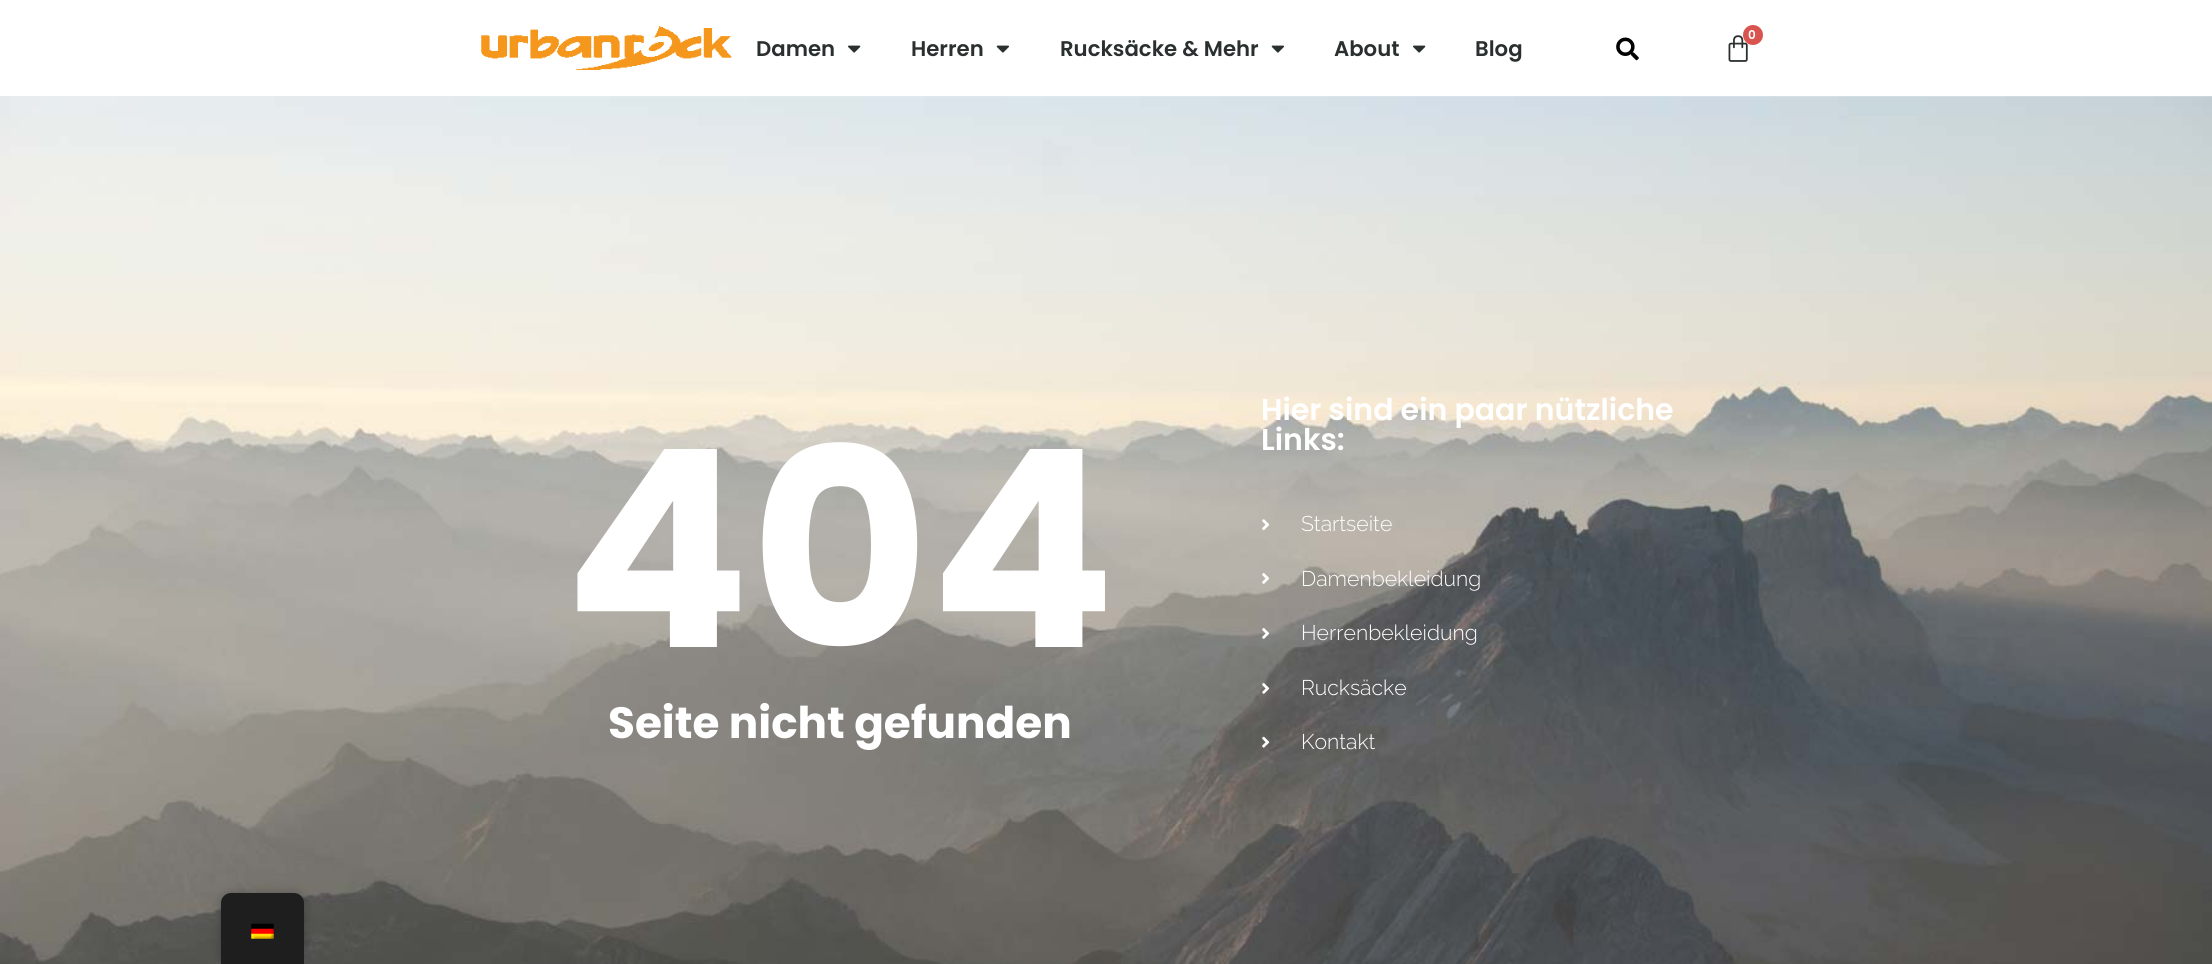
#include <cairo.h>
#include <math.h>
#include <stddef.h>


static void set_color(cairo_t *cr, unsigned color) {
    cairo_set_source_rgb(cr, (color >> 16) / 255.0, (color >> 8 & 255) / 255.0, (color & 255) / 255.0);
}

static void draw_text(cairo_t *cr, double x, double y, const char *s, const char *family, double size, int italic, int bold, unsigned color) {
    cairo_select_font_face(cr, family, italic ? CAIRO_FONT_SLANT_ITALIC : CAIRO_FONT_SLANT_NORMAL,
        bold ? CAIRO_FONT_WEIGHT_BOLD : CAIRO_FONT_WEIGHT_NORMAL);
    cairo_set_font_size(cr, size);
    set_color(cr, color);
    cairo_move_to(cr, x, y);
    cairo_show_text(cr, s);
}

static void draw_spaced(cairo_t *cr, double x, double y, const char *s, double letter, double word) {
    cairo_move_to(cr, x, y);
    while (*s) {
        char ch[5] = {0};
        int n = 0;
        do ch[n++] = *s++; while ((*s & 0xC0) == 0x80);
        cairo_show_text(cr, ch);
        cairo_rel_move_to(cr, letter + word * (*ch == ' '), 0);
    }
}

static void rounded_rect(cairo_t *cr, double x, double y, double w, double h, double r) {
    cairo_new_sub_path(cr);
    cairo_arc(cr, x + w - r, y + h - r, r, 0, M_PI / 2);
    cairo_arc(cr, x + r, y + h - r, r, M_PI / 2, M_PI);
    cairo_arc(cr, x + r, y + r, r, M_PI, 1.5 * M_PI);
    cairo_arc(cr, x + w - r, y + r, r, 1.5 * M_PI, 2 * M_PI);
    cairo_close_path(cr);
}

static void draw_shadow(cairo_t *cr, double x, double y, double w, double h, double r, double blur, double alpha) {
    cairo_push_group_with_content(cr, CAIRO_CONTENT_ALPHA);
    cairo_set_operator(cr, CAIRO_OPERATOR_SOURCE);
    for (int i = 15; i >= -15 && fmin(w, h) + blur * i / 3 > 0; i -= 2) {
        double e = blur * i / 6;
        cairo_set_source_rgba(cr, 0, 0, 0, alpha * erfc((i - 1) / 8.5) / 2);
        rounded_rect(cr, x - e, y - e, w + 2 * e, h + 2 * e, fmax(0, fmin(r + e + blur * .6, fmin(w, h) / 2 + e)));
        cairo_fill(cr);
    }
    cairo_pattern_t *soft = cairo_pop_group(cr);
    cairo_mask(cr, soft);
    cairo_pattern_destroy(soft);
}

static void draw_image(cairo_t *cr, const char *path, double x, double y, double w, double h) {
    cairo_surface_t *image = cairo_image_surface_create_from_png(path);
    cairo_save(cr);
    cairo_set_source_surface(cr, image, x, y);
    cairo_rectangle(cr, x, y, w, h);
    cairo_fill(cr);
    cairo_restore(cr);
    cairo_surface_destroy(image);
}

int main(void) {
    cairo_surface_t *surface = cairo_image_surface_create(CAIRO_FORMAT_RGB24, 2212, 964);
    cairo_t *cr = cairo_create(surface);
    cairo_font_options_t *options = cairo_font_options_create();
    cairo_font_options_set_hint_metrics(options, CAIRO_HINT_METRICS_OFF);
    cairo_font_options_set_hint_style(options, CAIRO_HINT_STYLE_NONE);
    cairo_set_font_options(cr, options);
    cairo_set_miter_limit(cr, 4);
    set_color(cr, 0xFFFFFF);
    cairo_paint(cr);
    cairo_save(cr);
    cairo_rectangle(cr, 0, 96, 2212, 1);
    cairo_clip(cr);
    set_color(cr, 0x000000);
    draw_shadow(cr, 0, 0, 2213, 96, 0, 3, 0.16);
    cairo_restore(cr);
    draw_image(cr, "assets/img1.png", 481, 26, 251, 44);
    draw_image(cr, "assets/img2.png", 1728, 35, 20, 27);
    set_color(cr, 0xD9534F);
    cairo_arc(cr, 1753, 35, 10, 0, 2 * M_PI);
    cairo_fill(cr);
    cairo_select_font_face(cr, "Poppins SemiBold", CAIRO_FONT_SLANT_NORMAL, CAIRO_FONT_WEIGHT_NORMAL);
    cairo_set_font_size(cr, 12);
    set_color(cr, 0xFFFFFF);
    draw_spaced(cr, 1748, 39, "0", 1, 0);
    draw_text(cr, 756, 56, "Damen", "Poppins SemiBold", 21.25, 0, 0, 0x2A302F);
    draw_image(cr, "assets/img3.png", 848, 45, 13, 8);
    draw_text(cr, 911, 56, "Herren", "Poppins SemiBold", 21.25, 0, 0, 0x2A302F);
    draw_image(cr, "assets/img4.png", 996, 45, 13, 8);
    draw_text(cr, 1060, 56, "Rucksäcke & Mehr", "Poppins SemiBold", 21.25, 0, 0, 0x2A302F);
    draw_image(cr, "assets/img4.png", 1271, 45, 13, 8);
    draw_text(cr, 1334, 56, "About", "Poppins SemiBold", 21.25, 0, 0, 0x2A302F);
    draw_image(cr, "assets/img3.png", 1413, 45, 13, 8);
    draw_text(cr, 1475, 56, "Blog", "Poppins SemiBold", 21.25, 0, 0, 0x2A302F);
    draw_image(cr, "assets/img5.png", 1616, 37, 23, 24);
    draw_image(cr, "assets/img6.png", 0, 96, 2212, 868);
    draw_text(cr, 564, 647, "404", "Poppins", 275, 0, 1, 0xFFFFFF);
    draw_text(cr, 608, 738, "Seite nicht gefunden", "Poppins", 43.75, 0, 1, 0xFFFFFF);
    draw_text(cr, 1261, 420, "Hier sind ein paar nützliche", "Poppins SemiBold", 30, 0, 0, 0xFFFFFF);
    draw_text(cr, 1261, 450, "Links:", "Poppins SemiBold", 30, 0, 0, 0xFFFFFF);
    draw_image(cr, "assets/img7.png", 1262, 519, 8, 12);
    draw_text(cr, 1301, 531, "Startseite", "Raleway Light", 21.25, 0, 0, 0xFFFFFF);
    draw_image(cr, "assets/img8.png", 1262, 573, 8, 11);
    draw_text(cr, 1301, 586, "Damenbekleidung", "Raleway Light", 21.25, 0, 0, 0xFFFFFF);
    draw_image(cr, "assets/img9.png", 1262, 628, 8, 11);
    draw_text(cr, 1301, 640, "Herrenbekleidung", "Raleway Light", 21.25, 0, 0, 0xFFFFFF);
    draw_image(cr, "assets/img10.png", 1262, 683, 8, 11);
    draw_text(cr, 1301, 695, "Rucksäcke", "Raleway Light", 21.25, 0, 0, 0xFFFFFF);
    draw_image(cr, "assets/img11.png", 1262, 736, 8, 12);
    draw_text(cr, 1301, 749, "Kontakt", "Raleway Light", 21.25, 0, 0, 0xFFFFFF);
    set_color(cr, 0x000000);
    draw_shadow(cr, 221, 893, 83, 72, 10, 5, 0.25);
    set_color(cr, 0x1E1E1E);
    cairo_new_path(cr);
    cairo_move_to(cr, 231, 893);
    cairo_line_to(cr, 294, 893);
    cairo_curve_to(cr, 299.5, 893, 304, 897.5, 304, 903);
    cairo_line_to(cr, 304, 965);
    cairo_line_to(cr, 221, 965);
    cairo_line_to(cr, 221, 903);
    cairo_curve_to(cr, 221, 897.5, 225.5, 893, 231, 893);
    cairo_close_path(cr);
    cairo_fill(cr);
    draw_image(cr, "assets/img12.png", 251, 923, 23, 16);
    cairo_surface_write_to_png(surface, "output.png");
    cairo_font_options_destroy(options);
    cairo_destroy(cr);
    cairo_surface_destroy(surface);
    return 0;
}
